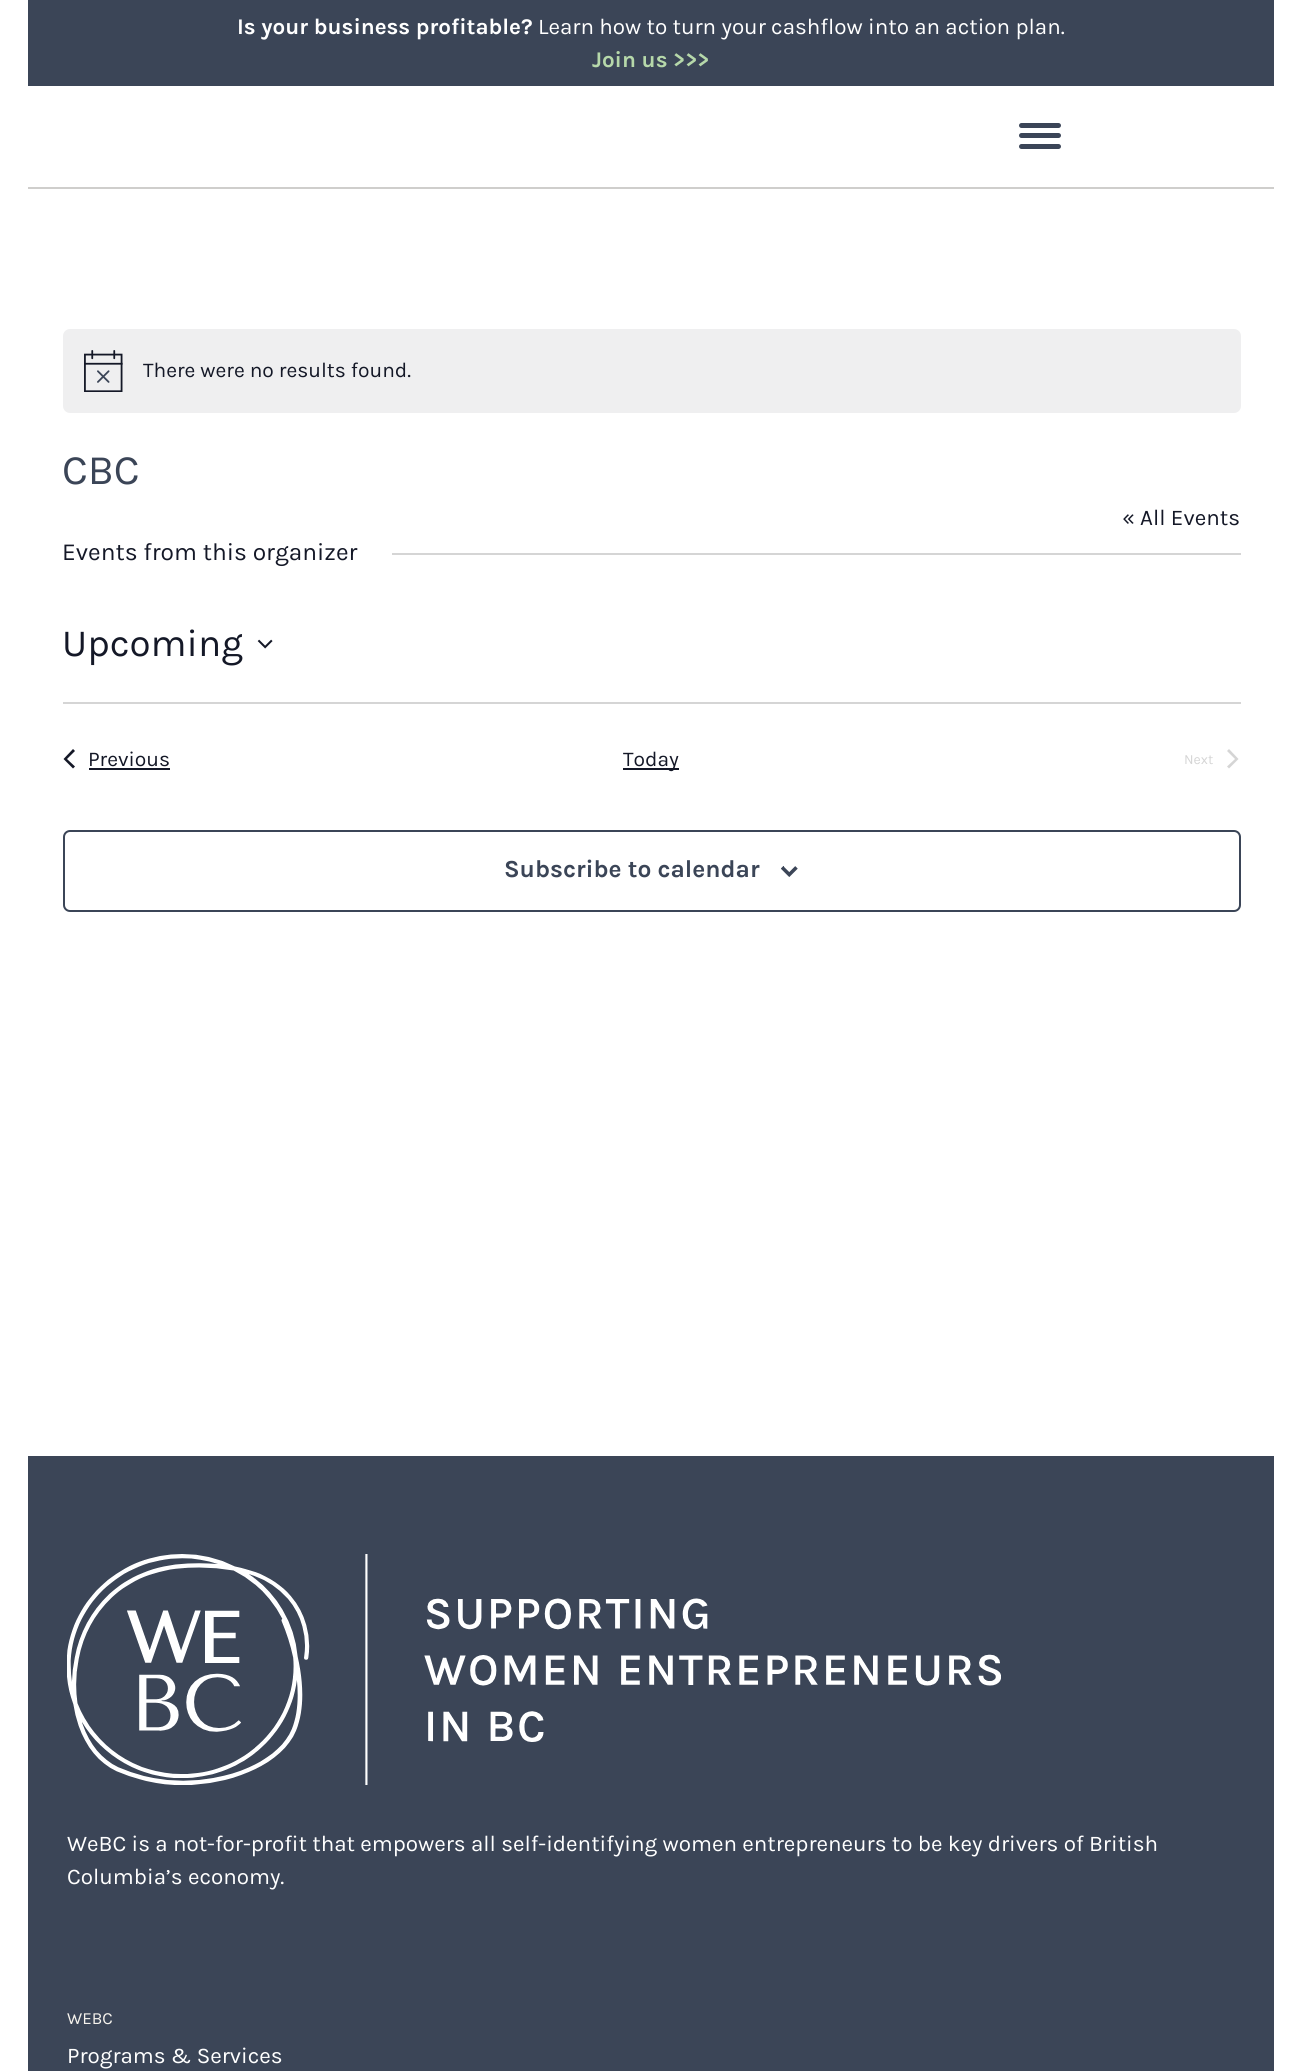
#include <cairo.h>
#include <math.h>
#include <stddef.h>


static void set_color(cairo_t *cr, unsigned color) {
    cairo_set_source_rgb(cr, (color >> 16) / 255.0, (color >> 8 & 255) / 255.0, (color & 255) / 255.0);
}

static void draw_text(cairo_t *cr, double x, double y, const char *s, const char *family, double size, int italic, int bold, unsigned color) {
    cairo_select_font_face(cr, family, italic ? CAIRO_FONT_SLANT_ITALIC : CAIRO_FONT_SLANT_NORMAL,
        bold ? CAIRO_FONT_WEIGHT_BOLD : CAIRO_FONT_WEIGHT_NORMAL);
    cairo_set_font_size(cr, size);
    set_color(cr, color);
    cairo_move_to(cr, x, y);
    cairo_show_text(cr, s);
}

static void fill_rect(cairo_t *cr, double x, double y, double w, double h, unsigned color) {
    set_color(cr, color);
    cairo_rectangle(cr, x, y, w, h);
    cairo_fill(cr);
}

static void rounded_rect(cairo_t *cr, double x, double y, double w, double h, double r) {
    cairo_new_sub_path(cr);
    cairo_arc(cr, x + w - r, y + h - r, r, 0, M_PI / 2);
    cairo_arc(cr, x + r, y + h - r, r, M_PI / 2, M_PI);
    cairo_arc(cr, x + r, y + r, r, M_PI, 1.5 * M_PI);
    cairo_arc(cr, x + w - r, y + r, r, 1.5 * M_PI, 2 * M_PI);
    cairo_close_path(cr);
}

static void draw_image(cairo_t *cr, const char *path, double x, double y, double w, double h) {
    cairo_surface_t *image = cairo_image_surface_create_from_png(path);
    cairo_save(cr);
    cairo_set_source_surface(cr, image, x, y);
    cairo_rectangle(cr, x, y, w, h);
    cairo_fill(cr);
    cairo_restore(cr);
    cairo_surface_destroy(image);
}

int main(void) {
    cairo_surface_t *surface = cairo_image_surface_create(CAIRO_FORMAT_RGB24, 1302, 2071);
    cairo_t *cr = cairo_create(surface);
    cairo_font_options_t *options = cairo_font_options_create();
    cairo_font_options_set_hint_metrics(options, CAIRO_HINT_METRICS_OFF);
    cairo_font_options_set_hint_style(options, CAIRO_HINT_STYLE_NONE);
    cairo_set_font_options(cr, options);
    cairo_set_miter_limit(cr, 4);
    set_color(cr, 0xFFFFFF);
    cairo_paint(cr);
    fill_rect(cr, 28, 187, 1246, 2, 0xCFCECC);
    fill_rect(cr, 28, 0, 1246, 86, 0x3B4557);
    draw_text(cr, 237, 34, "Is your business profitable?", "Karla", 22.4, 0, 1, 0xFFFFFF);
    draw_text(cr, 538, 34, "Learn how to turn your cashflow into an action plan.", "Karla", 22.4, 0, 0, 0xFFFFFF);
    draw_text(cr, 592, 67, "Join us >>>", "Karla", 22.4, 0, 1, 0xB6D8AA);
    set_color(cr, 0x3B4557);
    rounded_rect(cr, 1019, 123, 42, 5, 2.5);
    cairo_fill(cr);
    rounded_rect(cr, 1019, 133, 42, 5, 2.5);
    cairo_fill(cr);
    rounded_rect(cr, 1019, 144, 42, 5, 2.5);
    cairo_fill(cr);
    set_color(cr, 0xEFEFF0);
    rounded_rect(cr, 63, 329, 1178, 84, 7);
    cairo_fill(cr);
    draw_image(cr, "assets/img1.png", 84, 350, 39, 42);
    draw_text(cr, 143, 377, "There were no results found.", "Karla", 21, 0, 0, 0x141827);
    draw_text(cr, 62, 484, "CBC", "Karla", 42, 0, 0, 0x3B4557);
    draw_text(cr, 1122, 525, "« All Events", "Karla", 22.4, 0, 0, 0x141827);
    draw_text(cr, 62, 560, "Events from this organizer", "Karla", 24.5, 0, 0, 0x141827);
    fill_rect(cr, 392, 553, 849, 2, 0xD5D5D5);
    draw_text(cr, 62, 656, "Upcoming", "Karla", 38.5, 0, 0, 0x141827);
    draw_image(cr, "assets/img2.png", 257, 639, 16, 10);
    fill_rect(cr, 63, 702, 1178, 2, 0xD5D5D5);
    set_color(cr, 0x141827);
    cairo_new_path(cr);
    cairo_move_to(cr, 75, 766.5);
    cairo_line_to(cr, 73, 768.5);
    cairo_line_to(cr, 63.5, 759);
    cairo_line_to(cr, 73, 749);
    cairo_line_to(cr, 75, 751);
    cairo_line_to(cr, 67, 759);
    cairo_close_path(cr);
    cairo_fill(cr);
    draw_text(cr, 88, 766, "Previous", "Karla", 21, 0, 0, 0x141827);
    fill_rect(cr, 89, 768, 81, 2, 0x141827);
    fill_rect(cr, 623, 768, 56, 2, 0x141827);
    draw_text(cr, 623, 766, "Today", "Karla", 21, 0, 0, 0x141827);
    draw_text(cr, 1184, 764, "Next", "Karla", 14, 0, 0, 0xD5D5D5);
    cairo_new_path(cr);
    cairo_move_to(cr, 1227, 751);
    cairo_line_to(cr, 1229, 749);
    cairo_line_to(cr, 1238.5, 759);
    cairo_line_to(cr, 1229, 768.5);
    cairo_line_to(cr, 1227, 766.5);
    cairo_line_to(cr, 1235, 759);
    cairo_close_path(cr);
    cairo_fill(cr);
    rounded_rect(cr, 64, 831, 1176, 80, 6);
    set_color(cr, 0x3B4557);
    cairo_stroke(cr);
    draw_text(cr, 504, 877, "Subscribe to calendar", "Karla", 24.5, 0, 1, 0x3B4557);
    draw_image(cr, "assets/img3.png", 781, 866, 17, 11);
    fill_rect(cr, 28, 1456, 1246, 615, 0x3B4557);
    draw_image(cr, "assets/img4.png", 67, 1554, 934, 231);
    draw_text(cr, 67, 1851, "WeBC is a not-for-profit that empowers all self-identifying women entrepreneurs to be key drivers of British", "Karla", 22.4, 0, 0, 0xFFFFFF);
    draw_text(cr, 67, 1884, "Columbia’s economy.", "Karla", 22.4, 0, 0, 0xFFFFFF);
    draw_text(cr, 67, 2024, "WEBC", "Karla", 17, 0, 0, 0xF6F3ED);
    draw_text(cr, 67, 2063, "Programs & Services", "Karla", 22.4, 0, 0, 0xFFFFFF);
    cairo_surface_write_to_png(surface, "output.png");
    cairo_font_options_destroy(options);
    cairo_destroy(cr);
    cairo_surface_destroy(surface);
    return 0;
}
